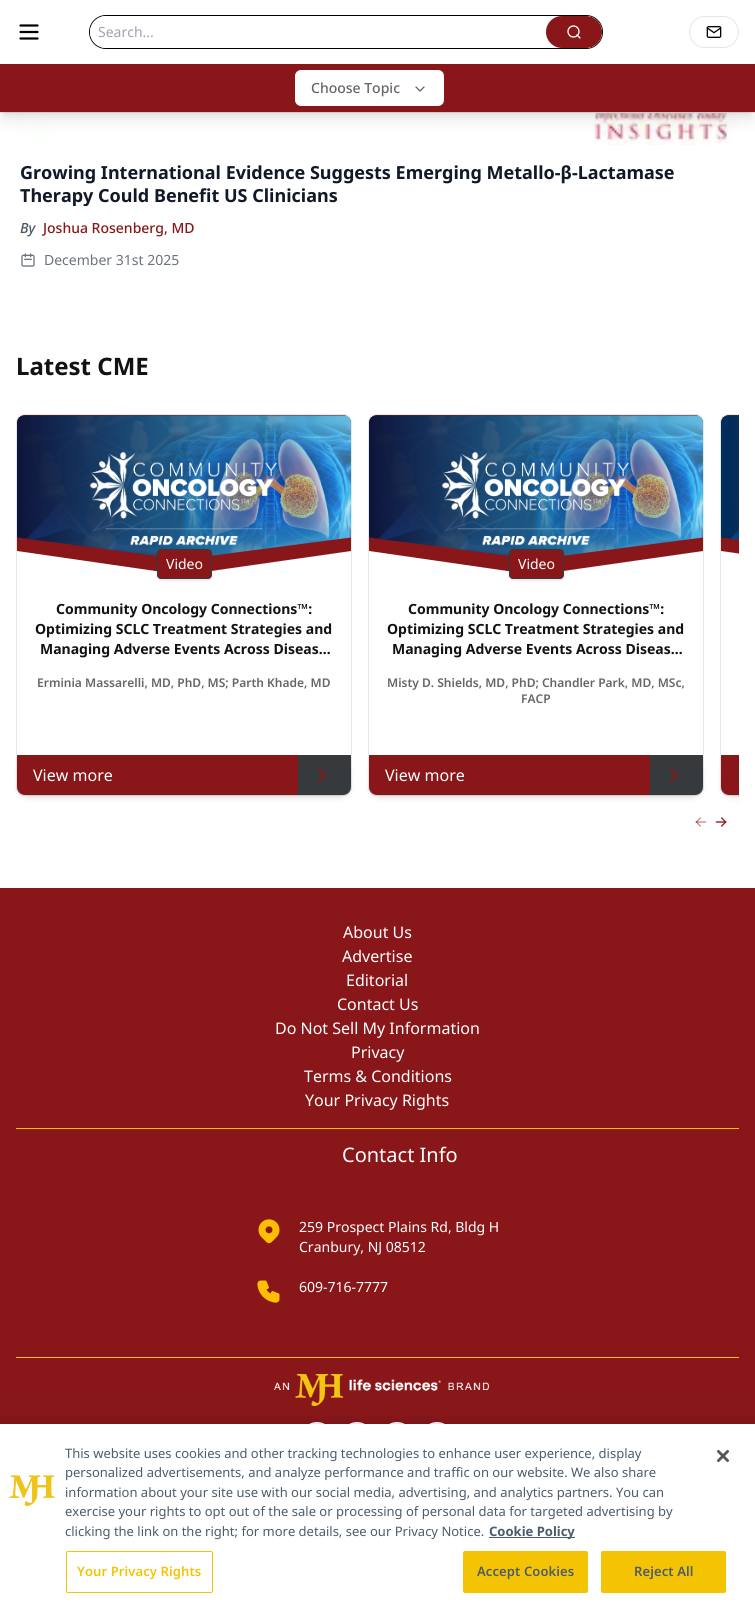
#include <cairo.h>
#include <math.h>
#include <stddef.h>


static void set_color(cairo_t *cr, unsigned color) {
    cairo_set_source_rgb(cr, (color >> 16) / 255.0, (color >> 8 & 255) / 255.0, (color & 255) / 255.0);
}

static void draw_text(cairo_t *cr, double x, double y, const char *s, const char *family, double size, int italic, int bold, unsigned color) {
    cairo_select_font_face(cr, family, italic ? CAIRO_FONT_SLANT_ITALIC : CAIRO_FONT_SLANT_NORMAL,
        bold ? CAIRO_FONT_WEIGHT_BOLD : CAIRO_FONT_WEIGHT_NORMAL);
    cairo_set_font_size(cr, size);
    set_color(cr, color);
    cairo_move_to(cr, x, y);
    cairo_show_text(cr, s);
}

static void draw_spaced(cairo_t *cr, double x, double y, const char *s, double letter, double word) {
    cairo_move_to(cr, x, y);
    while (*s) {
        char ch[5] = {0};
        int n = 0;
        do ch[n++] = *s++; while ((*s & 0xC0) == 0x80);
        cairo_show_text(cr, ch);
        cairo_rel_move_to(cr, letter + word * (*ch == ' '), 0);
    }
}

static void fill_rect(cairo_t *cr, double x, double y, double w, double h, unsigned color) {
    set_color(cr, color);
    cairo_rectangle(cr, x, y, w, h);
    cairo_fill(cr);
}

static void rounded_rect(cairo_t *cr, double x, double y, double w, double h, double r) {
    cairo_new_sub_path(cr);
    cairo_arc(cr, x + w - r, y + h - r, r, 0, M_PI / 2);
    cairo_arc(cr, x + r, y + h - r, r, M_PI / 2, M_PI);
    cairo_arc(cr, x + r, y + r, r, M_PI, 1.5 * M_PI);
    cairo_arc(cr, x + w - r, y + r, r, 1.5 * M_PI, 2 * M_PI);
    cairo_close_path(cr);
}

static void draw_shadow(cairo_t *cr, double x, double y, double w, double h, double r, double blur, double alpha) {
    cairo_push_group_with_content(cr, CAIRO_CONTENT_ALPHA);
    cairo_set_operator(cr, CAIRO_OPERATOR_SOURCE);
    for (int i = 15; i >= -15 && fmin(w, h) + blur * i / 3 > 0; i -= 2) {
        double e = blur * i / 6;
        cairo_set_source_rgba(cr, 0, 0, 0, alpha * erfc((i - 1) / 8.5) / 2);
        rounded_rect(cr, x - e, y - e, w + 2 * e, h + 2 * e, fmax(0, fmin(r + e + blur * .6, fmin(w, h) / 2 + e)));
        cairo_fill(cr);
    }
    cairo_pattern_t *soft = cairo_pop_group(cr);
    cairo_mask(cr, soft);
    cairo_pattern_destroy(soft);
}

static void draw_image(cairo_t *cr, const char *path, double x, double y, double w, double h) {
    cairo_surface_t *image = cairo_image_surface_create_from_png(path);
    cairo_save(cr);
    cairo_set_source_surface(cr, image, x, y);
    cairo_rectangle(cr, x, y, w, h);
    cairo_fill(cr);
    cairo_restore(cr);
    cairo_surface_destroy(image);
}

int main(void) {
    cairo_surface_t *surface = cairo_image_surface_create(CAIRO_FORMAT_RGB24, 755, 1614);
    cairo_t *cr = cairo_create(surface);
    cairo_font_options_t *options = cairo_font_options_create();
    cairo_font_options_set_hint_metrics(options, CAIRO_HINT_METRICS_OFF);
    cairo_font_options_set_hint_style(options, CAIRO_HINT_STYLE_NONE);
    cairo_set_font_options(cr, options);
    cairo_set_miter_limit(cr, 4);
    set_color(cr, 0xFFFFFF);
    cairo_paint(cr);
    fill_rect(cr, 0, 112, 755, 1, 0xE5E7EB);
    cairo_new_path(cr);
    cairo_move_to(cr, 20.5, 25.5);
    cairo_line_to(cr, 37.5, 25.5);
    cairo_move_to(cr, 20.5, 32);
    cairo_line_to(cr, 37.5, 32);
    cairo_move_to(cr, 20.5, 38.5);
    cairo_line_to(cr, 37.5, 38.5);
    set_color(cr, 0x000000);
    cairo_set_line_width(cr, 2.2);
    cairo_set_line_cap(cr, CAIRO_LINE_CAP_ROUND);
    cairo_set_line_join(cr, CAIRO_LINE_JOIN_ROUND);
    cairo_stroke(cr);
    rounded_rect(cr, 89.5, 15.5, 513, 33, 16.5);
    cairo_set_line_width(cr, 1);
    cairo_set_line_cap(cr, CAIRO_LINE_CAP_BUTT);
    cairo_set_line_join(cr, CAIRO_LINE_JOIN_MITER);
    cairo_stroke(cr);
    set_color(cr, 0xFFFFFF);
    rounded_rect(cr, 90, 16, 512, 32, 16);
    cairo_fill(cr);
    draw_text(cr, 98, 37, "Search...", "Noto Sans", 14, 0, 0, 0x9CA3AF);
    set_color(cr, 0x89171A);
    rounded_rect(cr, 546, 16, 56, 32, 16);
    cairo_fill(cr);
    cairo_arc(cr, 573.5, 31.5, 5.5, 0, 2 * M_PI);
    set_color(cr, 0xFFFFFF);
    cairo_set_line_width(cr, 1.3);
    cairo_stroke(cr);
    cairo_new_path(cr);
    cairo_move_to(cr, 580, 38);
    cairo_line_to(cr, 577, 35);
    cairo_set_line_cap(cr, CAIRO_LINE_CAP_ROUND);
    cairo_set_line_join(cr, CAIRO_LINE_JOIN_ROUND);
    cairo_stroke(cr);
    rounded_rect(cr, 689.5, 16.5, 49, 31, 15.5);
    set_color(cr, 0xE5E7EB);
    cairo_set_line_width(cr, 1);
    cairo_set_line_cap(cr, CAIRO_LINE_CAP_BUTT);
    cairo_set_line_join(cr, CAIRO_LINE_JOIN_MITER);
    cairo_stroke(cr);
    draw_image(cr, "assets/img1.png", 706, 26, 16, 12);
    draw_image(cr, "assets/img2.png", 16, 113, 723, 32);
    set_color(cr, 0x000000);
    draw_shadow(cr, 4, 72, 747, 40, 0, 3, 0.1);
    draw_shadow(cr, 3, 77, 749, 42, 0, 7.5, 0.1);
    fill_rect(cr, 0, 64, 755, 48, 0x89171A);
    set_color(cr, 0xFFFFFF);
    rounded_rect(cr, 295, 70, 149, 36, 6);
    cairo_fill(cr);
    draw_text(cr, 311, 93, "Choose Topic", "Noto Sans Medium", 14, 0, 0, 0x666666);
    cairo_new_path(cr);
    cairo_move_to(cr, 416, 87);
    cairo_line_to(cr, 420, 91);
    cairo_line_to(cr, 424, 87);
    cairo_set_line_width(cr, 1.3);
    cairo_set_line_cap(cr, CAIRO_LINE_CAP_ROUND);
    cairo_set_line_join(cr, CAIRO_LINE_JOIN_ROUND);
    cairo_stroke(cr);
    draw_text(cr, 20, 179, "Growing International Evidence Suggests Emerging Metallo-β-Lactamase", "Noto Sans", 18, 0, 1, 0x111827);
    cairo_save(cr);
    cairo_rectangle(cr, 20, 161, 715, 45);
    cairo_clip(cr);
    draw_text(cr, 20, 202, "Therapy Could Benefit US Clinicians", "Noto Sans", 18, 0, 1, 0x111827);
    cairo_restore(cr);
    draw_text(cr, 20, 233, "By", "Noto Sans Medium", 14, 1, 0, 0x4B5563);
    draw_text(cr, 43, 233, "Joshua Rosenberg, MD", "Noto Sans Medium", 14, 0, 0, 0x89171A);
    draw_image(cr, "assets/img3.png", 21, 253, 14, 14);
    draw_text(cr, 44, 265, "December 31st 2025", "Noto Sans", 14, 0, 0, 0x6B7280);
    draw_text(cr, 16, 375, "Latest CME", "Noto Sans", 24, 0, 1, 0x121212);
    rounded_rect(cr, 16.5, 414.5, 335, 381, 7.5);
    set_color(cr, 0xE5E7EB);
    cairo_set_line_width(cr, 1);
    cairo_set_line_cap(cr, CAIRO_LINE_CAP_BUTT);
    cairo_set_line_join(cr, CAIRO_LINE_JOIN_MITER);
    cairo_stroke(cr);
    set_color(cr, 0x89171A);
    cairo_new_path(cr);
    cairo_move_to(cr, 17, 423);
    cairo_line_to(cr, 17, 551);
    cairo_line_to(cr, 183, 575);
    cairo_line_to(cr, 351, 551);
    cairo_line_to(cr, 351, 423);
    cairo_curve_to(cr, 351, 419, 348, 416, 344, 415);
    cairo_line_to(cr, 24, 415);
    cairo_curve_to(cr, 20, 416, 17, 419, 17, 423);
    cairo_close_path(cr);
    cairo_fill(cr);
    draw_image(cr, "assets/img4.png", 17, 415, 334, 141);
    set_color(cr, 0x000000);
    draw_shadow(cr, 158, 551, 53, 28, 3, 1, 0.1);
    draw_shadow(cr, 157, 550, 55, 30, 4, 1.5, 0.1);
    set_color(cr, 0x89171A);
    rounded_rect(cr, 157.5, 549.5, 54, 29, 3.5);
    cairo_fill_preserve(cr);
    set_color(cr, 0x373A3C);
    cairo_stroke(cr);
    draw_text(cr, 166, 569, "Video", "Noto Sans", 14, 0, 0, 0xFFFFFF);
    draw_text(cr, 56, 614, "Community Oncology Connections™:", "Noto Sans", 14, 0, 1, 0x121212);
    draw_text(cr, 35, 634, "Optimizing SCLC Treatment Strategies and", "Noto Sans", 14, 0, 1, 0x121212);
    draw_text(cr, 40, 654, "Managing Adverse Events Across Diseas…", "Noto Sans", 14, 0, 1, 0x121212);
    draw_text(cr, 37, 687, "Erminia Massarelli, MD, PhD, MS; Parth Khade, MD", "Noto Sans SemiBold", 12, 0, 0, 0x666666);
    set_color(cr, 0x000000);
    draw_shadow(cr, 19, 759, 330, 36, 10, 2, 0.1);
    draw_shadow(cr, 18, 760, 332, 38, 11, 3, 0.1);
    set_color(cr, 0x89171A);
    cairo_new_path(cr);
    cairo_move_to(cr, 17, 755);
    cairo_line_to(cr, 351, 755);
    cairo_line_to(cr, 351, 783);
    cairo_curve_to(cr, 351, 789.5, 345.5, 795, 339, 795);
    cairo_line_to(cr, 25, 795);
    cairo_curve_to(cr, 20.5, 795, 17, 791.5, 17, 787);
    cairo_close_path(cr);
    cairo_fill(cr);
    draw_text(cr, 33, 781, "View more", "Noto Sans", 16, 0, 0, 0xFFFFFF);
    set_color(cr, 0x373A3C);
    cairo_new_path(cr);
    cairo_move_to(cr, 298, 755);
    cairo_line_to(cr, 351, 755);
    cairo_line_to(cr, 351, 787);
    cairo_curve_to(cr, 351, 791.5, 347.5, 795, 343, 795);
    cairo_line_to(cr, 298, 795);
    cairo_close_path(cr);
    cairo_fill(cr);
    cairo_new_path(cr);
    cairo_move_to(cr, 319, 769);
    cairo_line_to(cr, 325, 775);
    cairo_line_to(cr, 319, 781);
    set_color(cr, 0x89171A);
    cairo_set_line_width(cr, 2);
    cairo_set_line_cap(cr, CAIRO_LINE_CAP_ROUND);
    cairo_set_line_join(cr, CAIRO_LINE_JOIN_ROUND);
    cairo_stroke(cr);
    rounded_rect(cr, 368.5, 414.5, 335, 381, 7.5);
    set_color(cr, 0xE5E7EB);
    cairo_set_line_width(cr, 1);
    cairo_set_line_cap(cr, CAIRO_LINE_CAP_BUTT);
    cairo_set_line_join(cr, CAIRO_LINE_JOIN_MITER);
    cairo_stroke(cr);
    set_color(cr, 0x89171A);
    cairo_new_path(cr);
    cairo_move_to(cr, 369, 423);
    cairo_line_to(cr, 369, 551);
    cairo_line_to(cr, 535, 575);
    cairo_line_to(cr, 703, 551);
    cairo_line_to(cr, 703, 423);
    cairo_curve_to(cr, 703, 419, 700, 416, 696, 415);
    cairo_line_to(cr, 376, 415);
    cairo_curve_to(cr, 372, 416, 369, 419, 369, 423);
    cairo_close_path(cr);
    cairo_fill(cr);
    draw_image(cr, "assets/img5.png", 369, 415, 334, 141);
    set_color(cr, 0x000000);
    draw_shadow(cr, 510, 551, 53, 28, 3, 1, 0.1);
    draw_shadow(cr, 509, 550, 55, 30, 4, 1.5, 0.1);
    set_color(cr, 0x89171A);
    rounded_rect(cr, 509.5, 549.5, 54, 29, 3.5);
    cairo_fill_preserve(cr);
    set_color(cr, 0x373A3C);
    cairo_stroke(cr);
    draw_text(cr, 518, 569, "Video", "Noto Sans", 14, 0, 0, 0xFFFFFF);
    draw_text(cr, 408, 614, "Community Oncology Connections™:", "Noto Sans", 14, 0, 1, 0x121212);
    draw_text(cr, 387, 634, "Optimizing SCLC Treatment Strategies and", "Noto Sans", 14, 0, 1, 0x121212);
    draw_text(cr, 392, 654, "Managing Adverse Events Across Diseas…", "Noto Sans", 14, 0, 1, 0x121212);
    draw_text(cr, 387, 687, "Misty D. Shields, MD, PhD; Chandler Park, MD, MSc,", "Noto Sans SemiBold", 12, 0, 0, 0x666666);
    draw_text(cr, 521, 703, "FACP", "Noto Sans SemiBold", 12, 0, 0, 0x666666);
    set_color(cr, 0x000000);
    draw_shadow(cr, 371, 759, 330, 36, 10, 2, 0.1);
    draw_shadow(cr, 370, 760, 332, 38, 11, 3, 0.1);
    set_color(cr, 0x89171A);
    cairo_new_path(cr);
    cairo_move_to(cr, 369, 755);
    cairo_line_to(cr, 703, 755);
    cairo_line_to(cr, 703, 783);
    cairo_curve_to(cr, 703, 789.5, 697.5, 795, 691, 795);
    cairo_line_to(cr, 377, 795);
    cairo_curve_to(cr, 372.5, 795, 369, 791.5, 369, 787);
    cairo_close_path(cr);
    cairo_fill(cr);
    draw_text(cr, 385, 781, "View more", "Noto Sans", 16, 0, 0, 0xFFFFFF);
    set_color(cr, 0x373A3C);
    cairo_new_path(cr);
    cairo_move_to(cr, 650, 755);
    cairo_line_to(cr, 703, 755);
    cairo_line_to(cr, 703, 787);
    cairo_curve_to(cr, 703, 791.5, 699.5, 795, 695, 795);
    cairo_line_to(cr, 650, 795);
    cairo_close_path(cr);
    cairo_fill(cr);
    cairo_new_path(cr);
    cairo_move_to(cr, 671, 769);
    cairo_line_to(cr, 677, 775);
    cairo_line_to(cr, 671, 781);
    set_color(cr, 0x89171A);
    cairo_set_line_width(cr, 2);
    cairo_set_line_cap(cr, CAIRO_LINE_CAP_ROUND);
    cairo_set_line_join(cr, CAIRO_LINE_JOIN_ROUND);
    cairo_stroke(cr);
    cairo_save(cr);
    cairo_rectangle(cr, 16, 414, 723, 398);
    cairo_clip(cr);
    rounded_rect(cr, 720.5, 414.5, 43, 381, 7.5);
    set_color(cr, 0xE5E7EB);
    cairo_set_line_width(cr, 1);
    cairo_set_line_cap(cr, CAIRO_LINE_CAP_BUTT);
    cairo_set_line_join(cr, CAIRO_LINE_JOIN_MITER);
    cairo_stroke(cr);
    set_color(cr, 0x89171A);
    cairo_new_path(cr);
    cairo_move_to(cr, 721, 423);
    cairo_line_to(cr, 721, 551);
    cairo_line_to(cr, 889, 575);
    cairo_line_to(cr, 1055, 551);
    cairo_line_to(cr, 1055, 423);
    cairo_curve_to(cr, 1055, 419, 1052, 416, 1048, 415);
    cairo_line_to(cr, 728, 415);
    cairo_curve_to(cr, 724, 416, 721, 419, 721, 423);
    cairo_close_path(cr);
    cairo_fill(cr);
    cairo_restore(cr);
    draw_image(cr, "assets/img6.png", 721, 415, 18, 125);
    cairo_save(cr);
    cairo_rectangle(cr, 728, 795, 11, 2);
    cairo_clip(cr);
    set_color(cr, 0x000000);
    draw_shadow(cr, 723, 759, 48, 36, 10, 2, 0.1);
    cairo_restore(cr);
    cairo_save(cr);
    cairo_rectangle(cr, 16, 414, 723, 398);
    cairo_clip(cr);
    set_color(cr, 0x000000);
    draw_shadow(cr, 722, 760, 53, 38, 11, 3, 0.1);
    cairo_restore(cr);
    cairo_new_path(cr);
    cairo_move_to(cr, 721, 755);
    cairo_line_to(cr, 739, 755);
    cairo_line_to(cr, 739, 795);
    cairo_line_to(cr, 729, 795);
    cairo_curve_to(cr, 724.5, 795, 721, 791.5, 721, 787);
    cairo_close_path(cr);
    cairo_fill(cr);
    draw_image(cr, "assets/img7.png", 695, 817, 12, 10);
    draw_image(cr, "assets/img8.png", 715, 817, 12, 10);
    fill_rect(cr, 0, 888, 755, 536, 0x89171A);
    draw_text(cr, 343, 938, "About Us", "Noto Sans", 16, 0, 0, 0xFFFFFF);
    draw_text(cr, 342, 962, "Advertise", "Noto Sans", 16, 0, 0, 0xFFFFFF);
    draw_text(cr, 346, 986, "Editorial", "Noto Sans", 16, 0, 0, 0xFFFFFF);
    draw_text(cr, 337, 1010, "Contact Us", "Noto Sans", 16, 0, 0, 0xFFFFFF);
    draw_text(cr, 275, 1034, "Do Not Sell My Information", "Noto Sans", 16, 0, 0, 0xFFFFFF);
    draw_text(cr, 351, 1058, "Privacy", "Noto Sans", 16, 0, 0, 0xFFFFFF);
    draw_text(cr, 304, 1082, "Terms & Conditions", "Noto Sans", 16, 0, 0, 0xFFFFFF);
    draw_text(cr, 305, 1106, "Your Privacy Rights", "Noto Sans", 16, 0, 0, 0xFFFFFF);
    fill_rect(cr, 16, 1128, 723, 1, 0xFFBF00);
    fill_rect(cr, 16, 1357, 723, 1, 0xFFBF00);
    draw_text(cr, 342, 1162, "Contact Info", "Noto Sans", 20, 0, 0, 0xFFFFFF);
    draw_image(cr, "assets/img9.png", 258, 1219, 22, 25);
    draw_text(cr, 299, 1232, "259 Prospect Plains Rd, Bldg H", "Noto Sans", 14, 0, 0, 0xFFFFFF);
    draw_text(cr, 299, 1252, "Cranbury, NJ 08512", "Noto Sans", 14, 0, 0, 0xFFFFFF);
    draw_image(cr, "assets/img10.png", 257, 1280, 23, 23);
    draw_text(cr, 299, 1292, "609-716-7777", "Noto Sans", 14, 0, 0, 0xFFFFFF);
    draw_image(cr, "assets/img11.png", 274, 1374, 215, 32);
    draw_image(cr, "assets/img12.png", 309, 1422, 16, 2);
    draw_image(cr, "assets/img12.png", 349, 1422, 16, 2);
    draw_image(cr, "assets/img12.png", 389, 1422, 16, 2);
    draw_image(cr, "assets/img12.png", 429, 1422, 16, 2);
    set_color(cr, 0x000000);
    draw_shadow(cr, 0, 1424, 755, 190, 0, 9, 0.2);
    fill_rect(cr, 0, 1424, 755, 190, 0xFFFFFF);
    draw_image(cr, "assets/img13.png", 9, 1475, 46, 31);
    draw_text(cr, 65, 1458, "This website uses cookies and other tracking technologies to enhance user experience, display", "Noto Sans", 13, 0, 0, 0x4C5C6B);
    draw_text(cr, 65, 1477, "personalized advertisements, and analyze performance and traffic on our website. We also share", "Noto Sans", 13, 0, 0, 0x4C5C6B);
    draw_text(cr, 65, 1497, "information about your site use with our social media, advertising, and analytics partners. You can", "Noto Sans", 13, 0, 0, 0x4C5C6B);
    draw_text(cr, 65, 1516, "exercise your rights to opt out of the sale or processing of personal data for targeted advertising by", "Noto Sans", 13, 0, 0, 0x4C5C6B);
    draw_text(cr, 65, 1536, "clicking the link on the right; for more details, see our Privacy Notice.", "Noto Sans", 13, 0, 0, 0x4C5C6B);
    fill_rect(cr, 489, 1537, 86, 1, 0x4C5C6B);
    draw_text(cr, 489, 1536, "Cookie Policy", "Noto Sans", 13, 0, 1, 0x4C5C6B);
    rounded_rect(cr, 66.5, 1551.5, 146, 41, 1.5);
    set_color(cr, 0xF4C404);
    cairo_set_line_width(cr, 1);
    cairo_set_line_cap(cr, CAIRO_LINE_CAP_BUTT);
    cairo_set_line_join(cr, CAIRO_LINE_JOIN_MITER);
    cairo_stroke(cr);
    cairo_select_font_face(cr, "Noto Sans SemiBold", CAIRO_FONT_SLANT_NORMAL, CAIRO_FONT_WEIGHT_NORMAL);
    draw_spaced(cr, 77, 1576, "Your Privacy Rights", 0.1, 0);
    rounded_rect(cr, 463.5, 1551.5, 124, 41, 1.5);
    cairo_fill_preserve(cr);
    cairo_stroke(cr);
    set_color(cr, 0x4C5C6B);
    draw_spaced(cr, 477, 1576, "Accept Cookies", 0.1, 0);
    set_color(cr, 0xF4C404);
    rounded_rect(cr, 601.5, 1551.5, 124, 41, 1.5);
    cairo_fill_preserve(cr);
    cairo_stroke(cr);
    set_color(cr, 0x4C5C6B);
    draw_spaced(cr, 634, 1576, "Reject All", 0.1, 0);
    draw_image(cr, "assets/img14.png", 717, 1450, 12, 12);
    cairo_surface_write_to_png(surface, "output.png");
    cairo_font_options_destroy(options);
    cairo_destroy(cr);
    cairo_surface_destroy(surface);
    return 0;
}
